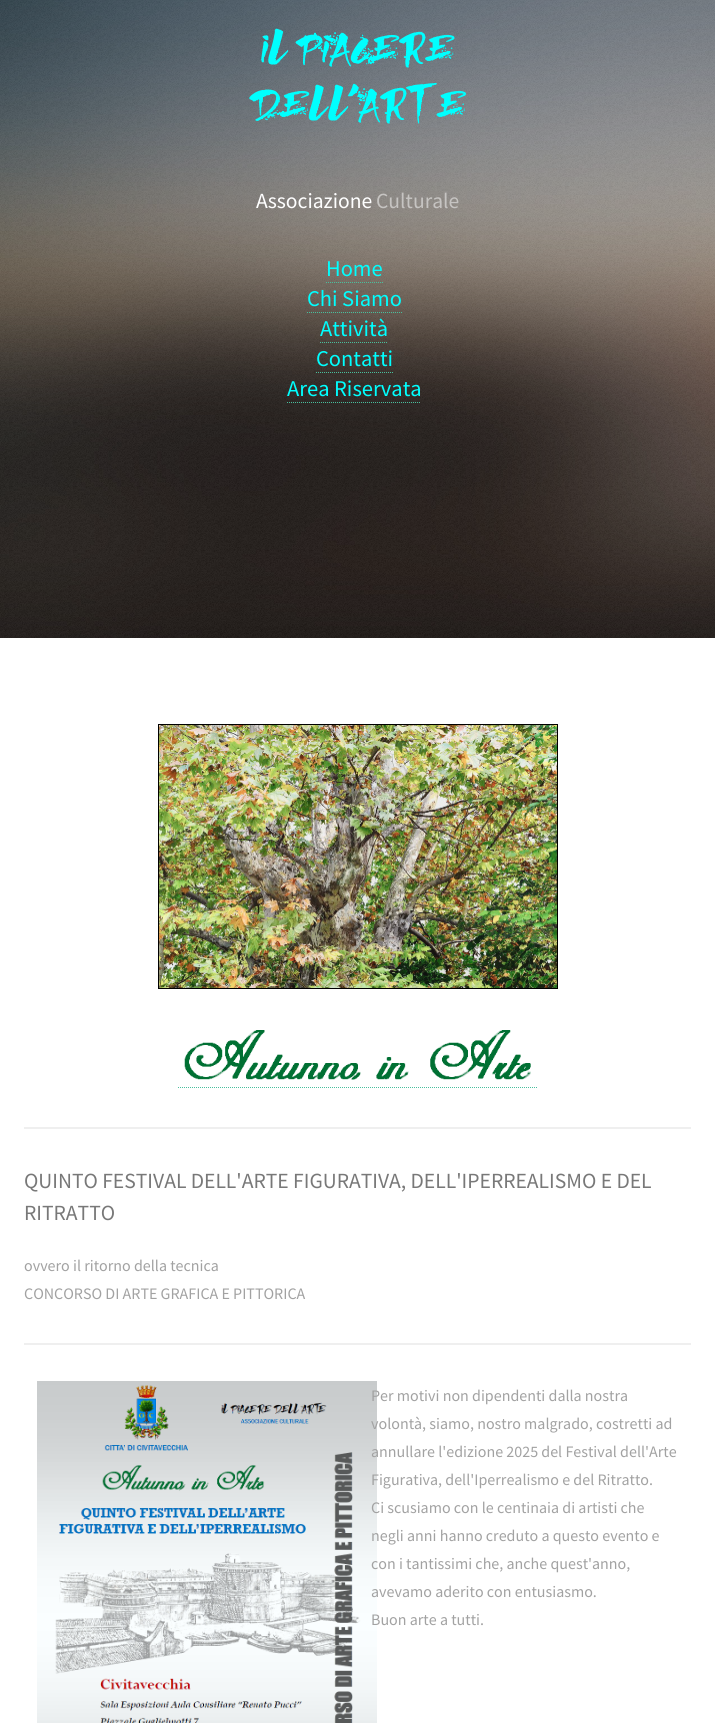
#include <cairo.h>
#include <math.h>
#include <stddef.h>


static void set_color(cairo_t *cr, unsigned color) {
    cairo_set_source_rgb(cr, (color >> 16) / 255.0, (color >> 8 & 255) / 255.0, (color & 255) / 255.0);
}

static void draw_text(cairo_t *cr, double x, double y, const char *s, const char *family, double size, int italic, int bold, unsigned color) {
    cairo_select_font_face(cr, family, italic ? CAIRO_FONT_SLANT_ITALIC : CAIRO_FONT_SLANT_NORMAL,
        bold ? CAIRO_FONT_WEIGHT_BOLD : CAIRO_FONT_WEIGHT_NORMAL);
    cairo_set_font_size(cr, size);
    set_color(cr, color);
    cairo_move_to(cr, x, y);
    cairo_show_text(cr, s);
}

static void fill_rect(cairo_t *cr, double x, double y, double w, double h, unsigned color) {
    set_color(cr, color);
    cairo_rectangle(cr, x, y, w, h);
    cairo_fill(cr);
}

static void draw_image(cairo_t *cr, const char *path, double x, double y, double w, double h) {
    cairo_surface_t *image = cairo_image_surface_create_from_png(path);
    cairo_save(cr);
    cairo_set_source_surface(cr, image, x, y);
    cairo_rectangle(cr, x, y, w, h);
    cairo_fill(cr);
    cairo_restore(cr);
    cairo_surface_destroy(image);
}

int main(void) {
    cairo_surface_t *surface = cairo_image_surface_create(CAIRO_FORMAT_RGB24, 715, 1723);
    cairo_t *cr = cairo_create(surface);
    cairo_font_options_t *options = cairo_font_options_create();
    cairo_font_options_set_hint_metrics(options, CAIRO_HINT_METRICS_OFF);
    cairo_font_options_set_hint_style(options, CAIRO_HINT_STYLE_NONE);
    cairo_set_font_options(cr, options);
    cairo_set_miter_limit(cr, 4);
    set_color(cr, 0xFFFFFF);
    cairo_paint(cr);
    draw_image(cr, "assets/img1.png", 0, 0, 715, 638);
    draw_text(cr, 261, 65, "IL PIACERE", "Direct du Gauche", 31, 0, 1, 0x00FFFF);
    draw_text(cr, 249, 121, "DELL'ARTE", "Direct du Gauche", 31, 0, 1, 0x00FFFF);
    draw_text(cr, 256, 208, "Associazione", "Source Sans Pro", 21.6, 0, 0, 0xFFFFFF);
    draw_text(cr, 376, 208, "Culturale", "Source Sans Pro", 21.6, 0, 0, 0xC6C4C2);
    draw_text(cr, 326, 276, "Home", "Source Sans Pro", 22.5, 0, 0, 0x00FFFF);
    cairo_new_path(cr);
    cairo_move_to(cr, 326, 282.5);
    cairo_line_to(cr, 383, 282.5);
    set_color(cr, 0x49BF9D);
    cairo_set_line_width(cr, 1);
    cairo_set_dash(cr, (double[]){1, 1}, 2, 0);
    cairo_stroke(cr);
    draw_text(cr, 307, 306, "Chi Siamo", "Source Sans Pro", 22.5, 0, 0, 0x00FFFF);
    cairo_new_path(cr);
    cairo_move_to(cr, 307, 312.5);
    cairo_line_to(cr, 402, 312.5);
    set_color(cr, 0x49BF9D);
    cairo_stroke(cr);
    draw_text(cr, 320, 336, "Attività", "Source Sans Pro", 22.5, 0, 0, 0x00FFFF);
    cairo_new_path(cr);
    cairo_move_to(cr, 320, 342.5);
    cairo_line_to(cr, 388, 342.5);
    set_color(cr, 0x49BF9D);
    cairo_stroke(cr);
    draw_text(cr, 316, 366, "Contatti", "Source Sans Pro", 22.5, 0, 0, 0x00FFFF);
    cairo_new_path(cr);
    cairo_move_to(cr, 316, 372.5);
    cairo_line_to(cr, 393, 372.5);
    set_color(cr, 0x49BF9D);
    cairo_stroke(cr);
    draw_text(cr, 287, 396, "Area Riservata", "Source Sans Pro", 22.5, 0, 0, 0x00FFFF);
    cairo_new_path(cr);
    cairo_move_to(cr, 287, 402.5);
    cairo_line_to(cr, 421, 402.5);
    set_color(cr, 0x49BF9D);
    cairo_stroke(cr);
    cairo_rectangle(cr, 158.5, 724.5, 399, 264);
    set_color(cr, 0x000000);
    cairo_set_dash(cr, NULL, 0, 0);
    cairo_stroke(cr);
    draw_image(cr, "assets/img2.png", 159, 725, 398, 263);
    draw_image(cr, "assets/img3.png", 184, 1030, 347, 50);
    cairo_new_path(cr);
    cairo_move_to(cr, 178, 1087.5);
    cairo_line_to(cr, 538, 1087.5);
    set_color(cr, 0x49BF9D);
    cairo_set_dash(cr, (double[]){1, 1}, 2, 0);
    cairo_stroke(cr);
    fill_rect(cr, 24, 1127, 667, 2, 0xEFEFEF);
    draw_text(cr, 24, 1188, "QUINTO FESTIVAL DELL'ARTE FIGURATIVA, DELL'IPERREALISMO E DEL", "Source Sans Pro", 21.6, 0, 0, 0x787878);
    draw_text(cr, 24, 1220, "RITRATTO", "Source Sans Pro", 21.6, 0, 0, 0x787878);
    draw_text(cr, 24, 1271, "ovvero il ritorno della tecnica", "Source Sans Pro", 16, 0, 0, 0xA2A2A2);
    draw_text(cr, 24, 1299, "CONCORSO DI ARTE GRAFICA E PITTORICA", "Source Sans Pro", 16, 0, 0, 0xA2A2A2);
    fill_rect(cr, 24, 1343, 667, 2, 0xEFEFEF);
    draw_image(cr, "assets/img4.png", 37, 1381, 340, 342);
    draw_text(cr, 371, 1401, "Per motivi non dipendenti dalla nostra", "Source Sans Pro", 16, 0, 0, 0xA2A2A2);
    draw_text(cr, 371, 1429, "volontà, siamo, nostro malgrado, costretti ad", "Source Sans Pro", 16, 0, 0, 0xA2A2A2);
    draw_text(cr, 371, 1457, "annullare l'edizione 2025 del Festival dell'Arte", "Source Sans Pro", 16, 0, 0, 0xA2A2A2);
    draw_text(cr, 371, 1485, "Figurativa, dell'Iperrealismo e del Ritratto.", "Source Sans Pro", 16, 0, 0, 0xA2A2A2);
    draw_text(cr, 371, 1513, "Ci scusiamo con le centinaia di artisti che", "Source Sans Pro", 16, 0, 0, 0xA2A2A2);
    draw_text(cr, 371, 1541, "negli anni hanno creduto a questo evento e", "Source Sans Pro", 16, 0, 0, 0xA2A2A2);
    draw_text(cr, 371, 1569, "con i tantissimi che, anche quest'anno,", "Source Sans Pro", 16, 0, 0, 0xA2A2A2);
    draw_text(cr, 371, 1597, "avevamo aderito con entusiasmo.", "Source Sans Pro", 16, 0, 0, 0xA2A2A2);
    draw_text(cr, 371, 1625, "Buon arte a tutti.", "Source Sans Pro", 16, 0, 0, 0xA2A2A2);
    cairo_surface_write_to_png(surface, "output.png");
    cairo_font_options_destroy(options);
    cairo_destroy(cr);
    cairo_surface_destroy(surface);
    return 0;
}
